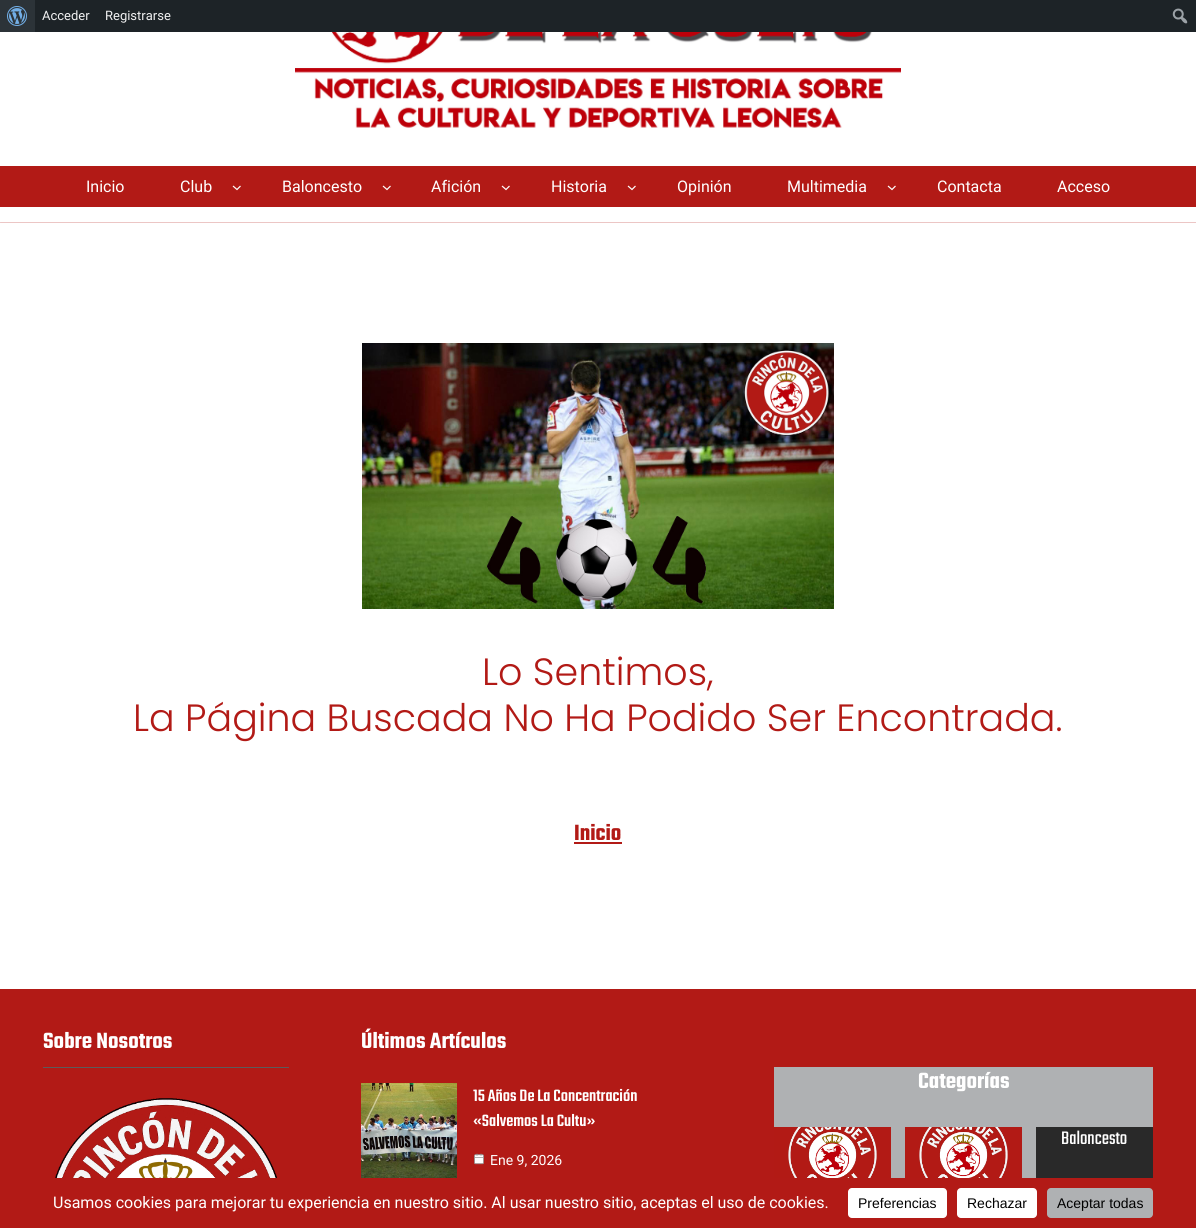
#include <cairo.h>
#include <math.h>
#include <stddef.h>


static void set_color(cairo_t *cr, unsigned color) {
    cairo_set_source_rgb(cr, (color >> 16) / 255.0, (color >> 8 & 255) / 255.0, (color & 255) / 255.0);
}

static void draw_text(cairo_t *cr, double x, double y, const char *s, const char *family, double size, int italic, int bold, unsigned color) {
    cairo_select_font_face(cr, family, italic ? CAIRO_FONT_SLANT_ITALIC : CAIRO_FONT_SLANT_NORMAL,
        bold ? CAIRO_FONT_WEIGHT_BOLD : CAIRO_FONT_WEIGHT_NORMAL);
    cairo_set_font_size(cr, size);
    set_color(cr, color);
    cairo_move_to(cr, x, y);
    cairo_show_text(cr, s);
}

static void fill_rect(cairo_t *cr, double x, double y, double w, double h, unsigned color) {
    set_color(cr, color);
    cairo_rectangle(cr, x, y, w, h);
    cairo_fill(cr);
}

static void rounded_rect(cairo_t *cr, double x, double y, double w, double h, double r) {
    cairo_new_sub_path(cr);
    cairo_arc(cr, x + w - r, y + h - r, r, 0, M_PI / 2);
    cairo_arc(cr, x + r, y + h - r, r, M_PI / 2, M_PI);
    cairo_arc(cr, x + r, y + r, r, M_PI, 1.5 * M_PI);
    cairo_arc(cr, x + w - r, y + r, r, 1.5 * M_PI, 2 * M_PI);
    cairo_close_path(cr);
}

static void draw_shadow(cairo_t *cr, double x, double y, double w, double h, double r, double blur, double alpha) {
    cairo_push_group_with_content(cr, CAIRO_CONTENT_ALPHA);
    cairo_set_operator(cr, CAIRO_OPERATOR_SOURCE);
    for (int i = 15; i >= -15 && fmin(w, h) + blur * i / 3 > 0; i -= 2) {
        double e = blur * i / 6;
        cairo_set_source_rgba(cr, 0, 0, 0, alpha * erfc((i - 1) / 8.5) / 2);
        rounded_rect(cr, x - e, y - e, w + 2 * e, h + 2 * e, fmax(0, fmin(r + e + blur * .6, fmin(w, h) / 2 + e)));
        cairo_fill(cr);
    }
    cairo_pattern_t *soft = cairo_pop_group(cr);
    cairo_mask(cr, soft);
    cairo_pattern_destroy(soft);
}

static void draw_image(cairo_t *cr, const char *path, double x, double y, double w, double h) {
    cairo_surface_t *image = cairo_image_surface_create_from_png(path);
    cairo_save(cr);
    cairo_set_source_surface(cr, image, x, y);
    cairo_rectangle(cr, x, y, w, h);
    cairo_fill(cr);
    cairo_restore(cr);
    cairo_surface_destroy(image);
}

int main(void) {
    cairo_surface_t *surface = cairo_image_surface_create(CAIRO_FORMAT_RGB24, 1196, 1228);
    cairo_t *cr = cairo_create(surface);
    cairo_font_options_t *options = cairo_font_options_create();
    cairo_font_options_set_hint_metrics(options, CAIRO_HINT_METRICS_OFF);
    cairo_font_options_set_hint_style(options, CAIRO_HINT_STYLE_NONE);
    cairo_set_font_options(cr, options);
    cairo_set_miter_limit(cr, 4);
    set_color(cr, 0xFFFFFF);
    cairo_paint(cr);
    fill_rect(cr, 35, 0, 1161, 32, 0x1D2327);
    fill_rect(cr, 0, 0, 35, 32, 0x2C3338);
    draw_image(cr, "assets/img1.png", 7, 6, 20, 20);
    draw_text(cr, 42, 20, "Acceder", "Roboto", 13, 0, 0, 0xF0F0F1);
    draw_text(cr, 105, 20, "Registrarse", "Roboto", 13, 0, 0, 0xF0F0F1);
    draw_image(cr, "assets/img2.png", 1172, 8, 16, 16);
    draw_image(cr, "assets/img3.png", 295, 32, 606, 96);
    fill_rect(cr, 0, 166, 1196, 41, 0xB21A16);
    draw_text(cr, 86, 192, "Inicio", "Roboto", 16, 0, 0, 0xFFFFFF);
    draw_text(cr, 180, 192, "Club", "Roboto", 16, 0, 0, 0xFFFFFF);
    cairo_new_path(cr);
    cairo_move_to(cr, 233, 186);
    cairo_line_to(cr, 237, 189.5);
    cairo_line_to(cr, 240.5, 186);
    cairo_set_line_width(cr, 1.2);
    cairo_stroke(cr);
    draw_text(cr, 282, 192, "Baloncesto", "Roboto", 16, 0, 0, 0xFFFFFF);
    cairo_new_path(cr);
    cairo_move_to(cr, 383, 186);
    cairo_line_to(cr, 387, 189.5);
    cairo_line_to(cr, 390.5, 186);
    cairo_stroke(cr);
    draw_text(cr, 431, 192, "Afición", "Roboto", 16, 0, 0, 0xFFFFFF);
    cairo_new_path(cr);
    cairo_move_to(cr, 502, 186);
    cairo_line_to(cr, 506, 189.5);
    cairo_line_to(cr, 509.5, 186);
    cairo_stroke(cr);
    draw_text(cr, 551, 192, "Historia", "Roboto", 16, 0, 0, 0xFFFFFF);
    cairo_new_path(cr);
    cairo_move_to(cr, 628, 186);
    cairo_line_to(cr, 632, 189.5);
    cairo_line_to(cr, 635.5, 186);
    cairo_stroke(cr);
    draw_text(cr, 677, 192, "Opinión", "Roboto", 16, 0, 0, 0xFFFFFF);
    draw_text(cr, 787, 192, "Multimedia", "Roboto", 16, 0, 0, 0xFFFFFF);
    cairo_new_path(cr);
    cairo_move_to(cr, 888, 186);
    cairo_line_to(cr, 892, 189.5);
    cairo_line_to(cr, 895.5, 186);
    cairo_stroke(cr);
    draw_text(cr, 937, 192, "Contacta", "Roboto", 16, 0, 0, 0xFFFFFF);
    draw_text(cr, 1057, 192, "Acceso", "Roboto", 16, 0, 0, 0xFFFFFF);
    cairo_save(cr);
    cairo_rectangle(cr, 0, 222, 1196, 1);
    cairo_clip(cr);
    set_color(cr, 0xB21A16);
    draw_shadow(cr, 0, 223, 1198, 768, 0, 0.5, 1);
    cairo_restore(cr);
    draw_image(cr, "assets/img4.png", 362, 343, 472, 266);
    draw_text(cr, 482, 685, "Lo Sentimos,", "Poppins Light", 38, 0, 0, 0xB21A16);
    draw_text(cr, 133, 731, "La Página Buscada No Ha Podido Ser Encontrada.", "Poppins Light", 38, 0, 0, 0xB21A16);
    draw_text(cr, 574, 840, "Inicio", "Teko SemiBold", 24, 0, 0, 0xB21A16);
    fill_rect(cr, 574, 842, 48, 2, 0xB21A16);
    fill_rect(cr, 0, 989, 1196, 239, 0xB21A16);
    draw_text(cr, 43, 1048, "Sobre Nosotros", "Teko SemiBold", 24, 0, 0, 0xFFFFFF);
    fill_rect(cr, 43, 1067, 246, 1, 0x5B5B5B);
    draw_image(cr, "assets/img5.png", 55, 1098, 222, 80);
    draw_text(cr, 361, 1048, "Últimos Artículos", "Teko SemiBold", 24, 0, 0, 0xFFFFFF);
    draw_image(cr, "assets/img6.png", 361, 1083, 96, 95);
    draw_text(cr, 473, 1101, "15 Años De La Concentración", "Teko Medium", 18, 0, 0, 0xFFFFFF);
    draw_text(cr, 473, 1126, "«Salvemos La Cultu»", "Teko Medium", 18, 0, 0, 0xFFFFFF);
    draw_image(cr, "assets/img7.png", 474, 1153, 10, 12);
    draw_text(cr, 490, 1165, "Ene 9, 2026", "Roboto", 14, 0, 0, 0xFFFFFF);
    fill_rect(cr, 774, 1067, 379, 111, 0xAFB1B3);
    draw_text(cr, 918, 1088, "Categorías", "Teko SemiBold", 24, 0, 0, 0xFFFFFF);
    draw_image(cr, "assets/img8.png", 774, 1127, 117, 51);
    draw_image(cr, "assets/img8.png", 905, 1127, 117, 51);
    fill_rect(cr, 1036, 1127, 117, 51, 0x292929);
    draw_text(cr, 1061, 1144, "Baloncesto", "Teko", 20, 0, 0, 0xFFFFFF);
    draw_text(cr, 53, 1208, "Usamos cookies para mejorar tu experiencia en nuestro sitio. Al usar nuestro sitio, aceptas el uso de cookies.", "Roboto", 16, 0, 0, 0xFFFFFF);
    rounded_rect(cr, 848, 1188, 99, 30, 4);
    cairo_fill(cr);
    draw_text(cr, 858, 1208, "Preferencias", "Liberation Sans", 14, 0, 0, 0x000000);
    set_color(cr, 0xFFFFFF);
    rounded_rect(cr, 957, 1188, 80, 30, 4);
    cairo_fill(cr);
    draw_text(cr, 967, 1208, "Rechazar", "Liberation Sans", 14, 0, 0, 0x000000);
    set_color(cr, 0xAFB1B3);
    rounded_rect(cr, 1047, 1188, 106, 30, 4);
    cairo_fill(cr);
    draw_text(cr, 1057, 1208, "Aceptar todas", "Liberation Sans", 14, 0, 0, 0x000000);
    cairo_surface_write_to_png(surface, "output.png");
    cairo_font_options_destroy(options);
    cairo_destroy(cr);
    cairo_surface_destroy(surface);
    return 0;
}
